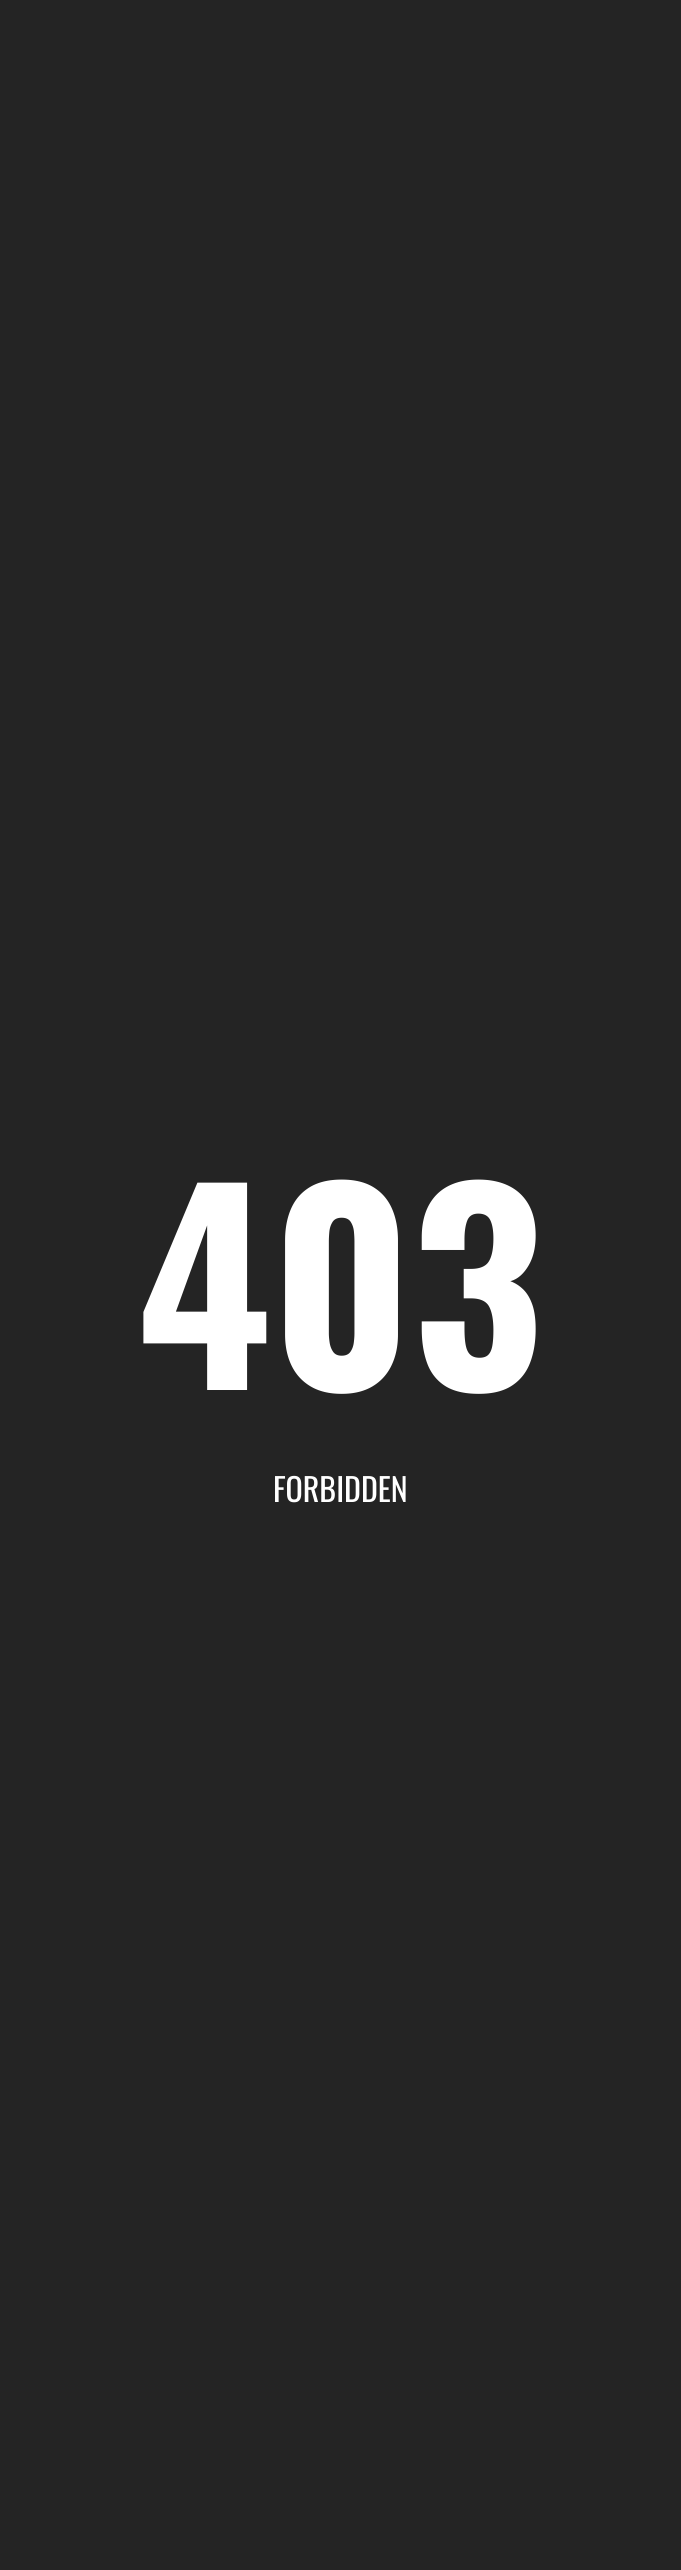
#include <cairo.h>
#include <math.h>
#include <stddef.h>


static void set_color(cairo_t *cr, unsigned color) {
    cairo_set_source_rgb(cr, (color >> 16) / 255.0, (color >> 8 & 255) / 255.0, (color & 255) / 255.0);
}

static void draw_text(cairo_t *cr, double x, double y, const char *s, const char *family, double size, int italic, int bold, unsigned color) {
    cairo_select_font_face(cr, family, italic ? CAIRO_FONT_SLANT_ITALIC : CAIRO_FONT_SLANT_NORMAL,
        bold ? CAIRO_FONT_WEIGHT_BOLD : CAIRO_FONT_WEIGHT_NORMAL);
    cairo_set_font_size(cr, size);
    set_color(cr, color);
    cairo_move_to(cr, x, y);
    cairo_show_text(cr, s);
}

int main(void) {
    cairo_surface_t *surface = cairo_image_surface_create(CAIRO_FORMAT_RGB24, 681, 2570);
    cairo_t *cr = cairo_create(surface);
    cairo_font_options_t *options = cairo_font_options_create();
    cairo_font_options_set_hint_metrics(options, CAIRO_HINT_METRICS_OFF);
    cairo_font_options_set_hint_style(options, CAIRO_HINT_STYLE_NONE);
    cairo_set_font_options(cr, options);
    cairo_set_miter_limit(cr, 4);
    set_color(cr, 0x242424);
    cairo_paint(cr);
    draw_text(cr, 137, 1390, "403", "Oswald", 256, 0, 1, 0xFFFFFF);
    draw_text(cr, 273, 1502, "FORBIDDEN", "Oswald", 32, 0, 0, 0xFFFFFF);
    cairo_surface_write_to_png(surface, "output.png");
    cairo_font_options_destroy(options);
    cairo_destroy(cr);
    cairo_surface_destroy(surface);
    return 0;
}
